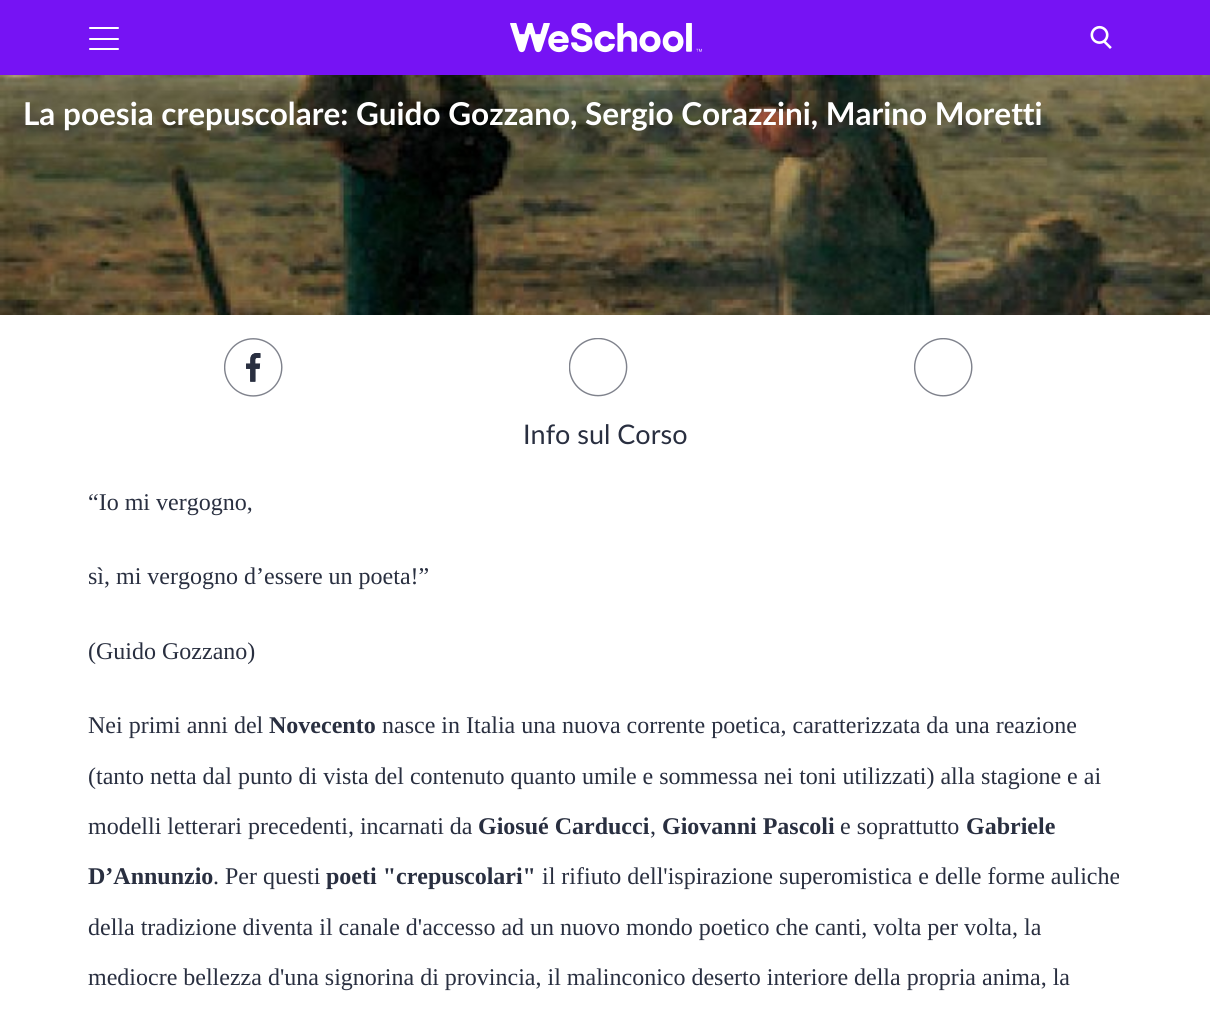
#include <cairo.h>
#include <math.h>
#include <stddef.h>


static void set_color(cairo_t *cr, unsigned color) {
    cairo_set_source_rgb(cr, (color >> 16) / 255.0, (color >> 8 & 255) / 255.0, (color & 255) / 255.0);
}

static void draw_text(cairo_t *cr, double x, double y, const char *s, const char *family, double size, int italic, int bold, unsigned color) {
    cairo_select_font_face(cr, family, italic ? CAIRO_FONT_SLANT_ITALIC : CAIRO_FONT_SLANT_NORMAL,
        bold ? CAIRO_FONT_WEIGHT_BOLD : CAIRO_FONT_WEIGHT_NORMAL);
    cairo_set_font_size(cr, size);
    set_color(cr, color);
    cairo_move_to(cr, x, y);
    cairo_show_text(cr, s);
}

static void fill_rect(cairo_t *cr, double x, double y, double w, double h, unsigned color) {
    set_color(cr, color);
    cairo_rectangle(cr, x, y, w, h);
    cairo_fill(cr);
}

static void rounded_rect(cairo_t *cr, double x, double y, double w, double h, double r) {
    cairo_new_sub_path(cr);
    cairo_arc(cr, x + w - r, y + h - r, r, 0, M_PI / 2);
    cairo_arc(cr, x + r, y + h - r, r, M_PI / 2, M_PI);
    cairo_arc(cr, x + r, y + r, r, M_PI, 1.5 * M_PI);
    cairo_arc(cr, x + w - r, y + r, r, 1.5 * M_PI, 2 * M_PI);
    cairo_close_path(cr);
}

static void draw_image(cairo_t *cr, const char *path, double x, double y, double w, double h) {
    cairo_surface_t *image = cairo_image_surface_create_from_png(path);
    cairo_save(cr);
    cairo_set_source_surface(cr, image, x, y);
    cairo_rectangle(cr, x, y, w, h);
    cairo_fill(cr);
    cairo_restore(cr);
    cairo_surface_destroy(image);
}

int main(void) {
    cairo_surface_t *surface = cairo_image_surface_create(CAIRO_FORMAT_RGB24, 1210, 1022);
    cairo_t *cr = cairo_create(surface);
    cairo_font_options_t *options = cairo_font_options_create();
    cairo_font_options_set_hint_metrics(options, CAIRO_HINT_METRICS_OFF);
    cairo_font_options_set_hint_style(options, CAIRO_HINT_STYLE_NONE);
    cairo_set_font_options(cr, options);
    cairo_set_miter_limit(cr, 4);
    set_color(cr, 0xFFFFFF);
    cairo_paint(cr);
    fill_rect(cr, 0, 0, 1210, 75, 0x7613F4);
    set_color(cr, 0xFFFFFF);
    rounded_rect(cr, 89, 27, 30, 2, 1);
    cairo_fill(cr);
    rounded_rect(cr, 89, 38, 30, 2, 1);
    cairo_fill(cr);
    rounded_rect(cr, 89, 48, 30, 2, 1);
    cairo_fill(cr);
    draw_image(cr, "assets/img1.png", 510, 23, 192, 30);
    draw_image(cr, "assets/img2.png", 1090, 25, 22, 24);
    draw_image(cr, "assets/img3.png", 0, 75, 1210, 240);
    draw_text(cr, 23, 125, "La poesia crepuscolare: Guido Gozzano, Sergio Corazzini, Marino Moretti", "Lato", 31.5, 0, 1, 0xFFFFFF);
    draw_image(cr, "assets/img4.png", 224, 338, 59, 59);
    draw_image(cr, "assets/img5.png", 569, 338, 59, 59);
    draw_image(cr, "assets/img6.png", 914, 338, 59, 59);
    draw_text(cr, 523, 444, "Info sul Corso", "Lato", 27, 0, 0, 0x292F40);
    draw_text(cr, 88, 510, "“Io mi vergogno,", "Liberation Serif", 24, 0, 0, 0x292F40);
    draw_text(cr, 88, 584, "sì, mi vergogno d’essere un poeta!”", "Liberation Serif", 24, 0, 0, 0x292F40);
    draw_text(cr, 88, 659, "(Guido Gozzano)", "Liberation Serif", 24, 0, 0, 0x292F40);
    draw_text(cr, 88, 733, "Nei primi anni del", "Liberation Serif", 24, 0, 0, 0x292F40);
    draw_text(cr, 269, 733, "Novecento", "Liberation Serif", 24, 0, 1, 0x292F40);
    draw_text(cr, 382, 733, "nasce in Italia una nuova corrente poetica, caratterizzata da una reazione", "Liberation Serif", 24, 0, 0, 0x292F40);
    draw_text(cr, 88, 784, "(tanto netta dal punto di vista del contenuto quanto umile e sommessa nei toni utilizzati) alla stagione e ai", "Liberation Serif", 24, 0, 0, 0x292F40);
    draw_text(cr, 88, 834, "modelli letterari precedenti, incarnati da", "Liberation Serif", 24, 0, 0, 0x292F40);
    draw_text(cr, 478, 834, "Giosué Carducci", "Liberation Serif", 24, 0, 1, 0x292F40);
    draw_text(cr, 650, 834, ",", "Liberation Serif", 24, 0, 0, 0x292F40);
    draw_text(cr, 662, 834, "Giovanni Pascoli", "Liberation Serif", 24, 0, 1, 0x292F40);
    draw_text(cr, 840, 834, "e soprattutto", "Liberation Serif", 24, 0, 0, 0x292F40);
    draw_text(cr, 966, 834, "Gabriele", "Liberation Serif", 24, 0, 1, 0x292F40);
    draw_text(cr, 88, 884, "D’Annunzio", "Liberation Serif", 24, 0, 1, 0x292F40);
    draw_text(cr, 213, 884, ". Per questi", "Liberation Serif", 24, 0, 0, 0x292F40);
    draw_text(cr, 326, 884, "poeti \"crepuscolari\"", "Liberation Serif", 24, 0, 1, 0x292F40);
    draw_text(cr, 542, 884, "il rifiuto dell'ispirazione superomistica e delle forme auliche", "Liberation Serif", 24, 0, 0, 0x292F40);
    draw_text(cr, 88, 935, "della tradizione diventa il canale d'accesso ad un nuovo mondo poetico che canti, volta per volta, la", "Liberation Serif", 24, 0, 0, 0x292F40);
    draw_text(cr, 88, 985, "mediocre bellezza d'una signorina di provincia, il malinconico deserto interiore della propria anima, la", "Liberation Serif", 24, 0, 0, 0x292F40);
    cairo_surface_write_to_png(surface, "output.png");
    cairo_font_options_destroy(options);
    cairo_destroy(cr);
    cairo_surface_destroy(surface);
    return 0;
}
